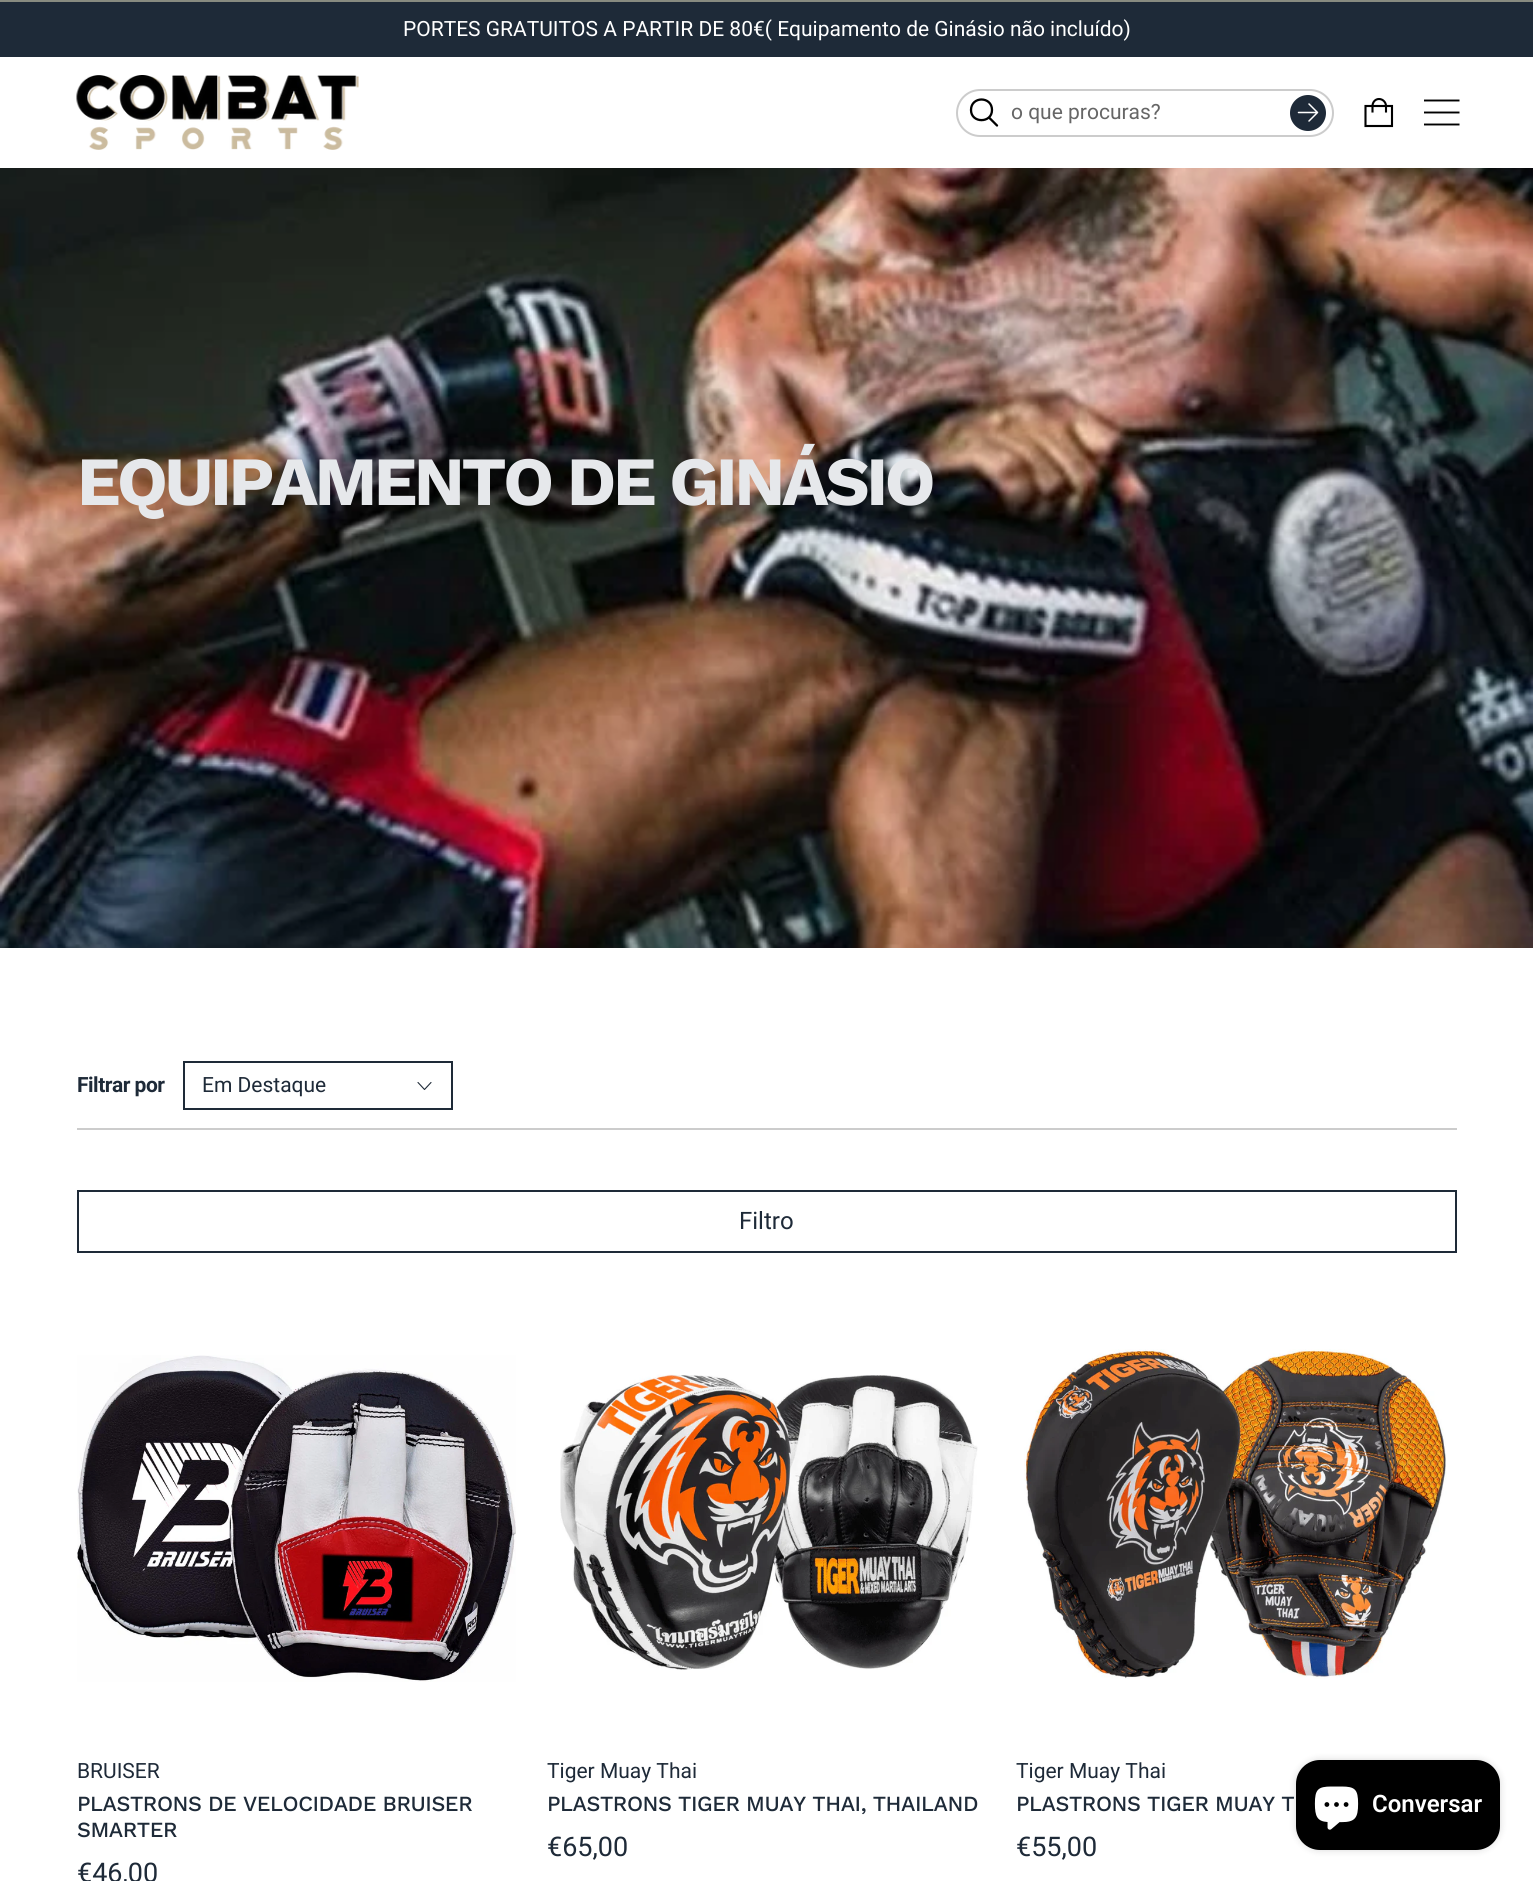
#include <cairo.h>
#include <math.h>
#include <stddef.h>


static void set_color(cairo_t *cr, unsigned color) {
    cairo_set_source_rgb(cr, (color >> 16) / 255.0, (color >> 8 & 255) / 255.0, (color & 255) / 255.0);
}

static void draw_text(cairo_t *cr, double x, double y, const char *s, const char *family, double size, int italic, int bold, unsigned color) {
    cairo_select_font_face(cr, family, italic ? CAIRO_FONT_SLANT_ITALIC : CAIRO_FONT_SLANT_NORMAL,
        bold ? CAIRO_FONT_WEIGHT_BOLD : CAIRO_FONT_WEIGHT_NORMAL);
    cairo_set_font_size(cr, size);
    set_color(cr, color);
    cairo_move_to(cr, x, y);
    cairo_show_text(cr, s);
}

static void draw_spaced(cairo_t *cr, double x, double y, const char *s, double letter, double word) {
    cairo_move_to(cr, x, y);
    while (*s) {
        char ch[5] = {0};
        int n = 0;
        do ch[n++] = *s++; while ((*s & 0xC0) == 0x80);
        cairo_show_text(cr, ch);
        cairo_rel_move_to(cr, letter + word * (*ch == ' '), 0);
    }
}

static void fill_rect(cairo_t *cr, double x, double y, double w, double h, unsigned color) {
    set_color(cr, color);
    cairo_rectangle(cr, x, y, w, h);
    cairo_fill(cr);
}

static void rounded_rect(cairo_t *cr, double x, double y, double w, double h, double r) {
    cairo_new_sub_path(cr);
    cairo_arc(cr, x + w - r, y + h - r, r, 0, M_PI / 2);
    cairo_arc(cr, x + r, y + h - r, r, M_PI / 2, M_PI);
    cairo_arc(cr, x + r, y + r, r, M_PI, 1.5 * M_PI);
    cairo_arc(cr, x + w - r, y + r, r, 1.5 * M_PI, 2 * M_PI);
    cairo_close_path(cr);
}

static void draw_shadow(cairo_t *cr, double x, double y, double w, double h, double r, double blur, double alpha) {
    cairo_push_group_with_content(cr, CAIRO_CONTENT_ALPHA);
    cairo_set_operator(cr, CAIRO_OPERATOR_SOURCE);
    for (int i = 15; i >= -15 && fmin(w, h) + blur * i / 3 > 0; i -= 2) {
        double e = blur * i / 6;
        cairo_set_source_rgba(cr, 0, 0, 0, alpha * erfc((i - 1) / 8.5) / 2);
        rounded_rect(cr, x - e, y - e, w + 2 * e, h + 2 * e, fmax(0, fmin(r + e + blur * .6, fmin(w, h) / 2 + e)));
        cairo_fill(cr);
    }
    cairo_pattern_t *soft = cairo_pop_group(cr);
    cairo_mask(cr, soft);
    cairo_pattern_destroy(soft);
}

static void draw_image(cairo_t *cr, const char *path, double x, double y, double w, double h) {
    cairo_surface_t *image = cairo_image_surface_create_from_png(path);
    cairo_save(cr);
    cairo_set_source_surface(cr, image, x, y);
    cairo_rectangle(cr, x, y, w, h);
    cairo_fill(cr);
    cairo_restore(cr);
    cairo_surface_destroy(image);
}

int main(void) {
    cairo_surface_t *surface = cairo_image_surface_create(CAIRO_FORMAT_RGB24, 1533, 1881);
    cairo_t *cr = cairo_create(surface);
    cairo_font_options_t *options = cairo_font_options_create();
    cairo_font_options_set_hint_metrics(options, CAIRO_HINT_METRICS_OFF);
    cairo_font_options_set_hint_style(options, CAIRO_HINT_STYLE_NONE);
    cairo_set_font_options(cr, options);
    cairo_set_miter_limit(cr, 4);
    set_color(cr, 0xFFFFFF);
    cairo_paint(cr);
    fill_rect(cr, 0, 2, 1533, 55, 0x1E2A38);
    fill_rect(cr, 0, 0, 1533, 2, 0x888B80);
    draw_text(cr, 403, 36, "PORTES GRATUITOS A PARTIR DE 80€( Equipamento de Ginásio não incluído)", "Roboto", 21, 0, 0, 0xFFFFFF);
    draw_image(cr, "assets/img1.png", 76, 75, 283, 75);
    rounded_rect(cr, 957, 90, 376, 46, 23);
    set_color(cr, 0xCCCCCC);
    cairo_stroke(cr);
    cairo_new_path(cr);
    cairo_move_to(cr, 989, 117.5);
    cairo_line_to(cr, 997, 125.5);
    cairo_move_to(cr, 992, 110);
    cairo_curve_to(cr, 992, 123.5, 971, 123.5, 971, 110);
    cairo_curve_to(cr, 971, 96, 992, 96, 992, 110);
    cairo_close_path(cr);
    set_color(cr, 0x000000);
    cairo_set_line_width(cr, 2.3);
    cairo_set_line_cap(cr, CAIRO_LINE_CAP_ROUND);
    cairo_stroke(cr);
    draw_text(cr, 1011, 119, "o que procuras?", "Roboto", 21, 0, 0, 0x666666);
    set_color(cr, 0x1E2A38);
    cairo_new_path(cr);
    cairo_arc(cr, 1308, 113, 18, 0, 2 * M_PI);
    cairo_fill(cr);
    cairo_new_path(cr);
    cairo_move_to(cr, 1298.5, 112.5);
    cairo_line_to(cr, 1316, 112.5);
    cairo_move_to(cr, 1309, 104);
    cairo_line_to(cr, 1317.5, 112.5);
    cairo_line_to(cr, 1309, 121);
    set_color(cr, 0xFFFFFF);
    cairo_set_line_width(cr, 1.5);
    cairo_set_line_join(cr, CAIRO_LINE_JOIN_ROUND);
    cairo_stroke(cr);
    cairo_new_path(cr);
    cairo_move_to(cr, 1386, 112.5);
    cairo_line_to(cr, 1386, 106);
    cairo_curve_to(cr, 1386, 102.5, 1383, 99, 1379, 99);
    cairo_curve_to(cr, 1375, 99, 1372.5, 102.5, 1372.5, 106);
    cairo_line_to(cr, 1372.5, 112.5);
    cairo_move_to(cr, 1365.5, 106);
    cairo_line_to(cr, 1392, 106);
    cairo_line_to(cr, 1392, 126);
    cairo_line_to(cr, 1365.5, 126);
    cairo_close_path(cr);
    set_color(cr, 0x000000);
    cairo_set_line_width(cr, 2.1);
    cairo_set_line_cap(cr, CAIRO_LINE_CAP_BUTT);
    cairo_set_line_join(cr, CAIRO_LINE_JOIN_MITER);
    cairo_stroke(cr);
    cairo_save(cr);
    cairo_rectangle(cr, 1424, 99, 36, 27);
    cairo_clip(cr);
    cairo_new_path(cr);
    cairo_move_to(cr, 1423.5, 124.5);
    cairo_line_to(cr, 1459.5, 124.5);
    cairo_move_to(cr, 1423.5, 112.5);
    cairo_line_to(cr, 1459.5, 112.5);
    cairo_move_to(cr, 1423.5, 100.5);
    cairo_line_to(cr, 1459.5, 100.5);
    cairo_set_line_width(cr, 1.9);
    cairo_stroke(cr);
    cairo_restore(cr);
    draw_image(cr, "assets/img2.png", 0, 168, 1533, 780);
    cairo_select_font_face(cr, "Work Sans", CAIRO_FONT_SLANT_NORMAL, CAIRO_FONT_WEIGHT_BOLD);
    cairo_set_font_size(cr, 69);
    set_color(cr, 0xE6E8EB);
    draw_spaced(cr, 77, 505, "EQUIPAMENTO DE GINÁSIO", -3.45, 0);
    fill_rect(cr, 77, 1128, 1380, 2, 0xCCCCCC);
    cairo_select_font_face(cr, "Roboto", CAIRO_FONT_SLANT_NORMAL, CAIRO_FONT_WEIGHT_BOLD);
    cairo_set_font_size(cr, 21);
    set_color(cr, 0x1E2A38);
    draw_spaced(cr, 77, 1092, "Filtrar por", -0.5, 0);
    cairo_rectangle(cr, 184, 1062, 268, 47);
    cairo_set_line_width(cr, 2);
    cairo_stroke(cr);
    draw_text(cr, 202, 1092, "Em Destaque", "Roboto", 21, 0, 0, 0x1E2A38);
    cairo_new_path(cr);
    cairo_move_to(cr, 418, 1082.5);
    cairo_line_to(cr, 424.5, 1089.5);
    cairo_line_to(cr, 431, 1082.5);
    cairo_set_line_width(cr, 1.1);
    cairo_set_line_cap(cr, CAIRO_LINE_CAP_ROUND);
    cairo_set_line_join(cr, CAIRO_LINE_JOIN_ROUND);
    cairo_stroke(cr);
    cairo_rectangle(cr, 78, 1191, 1378, 61);
    cairo_set_line_width(cr, 2);
    cairo_set_line_cap(cr, CAIRO_LINE_CAP_BUTT);
    cairo_set_line_join(cr, CAIRO_LINE_JOIN_MITER);
    cairo_stroke(cr);
    draw_text(cr, 739, 1229, "Filtro", "Roboto", 24, 0, 0, 0x1E2A38);
    draw_image(cr, "assets/img3.png", 77, 1355, 439, 327);
    draw_text(cr, 77, 1778, "BRUISER", "Roboto", 21, 0, 0, 0x1E2A38);
    cairo_select_font_face(cr, "Work Sans Medium", CAIRO_FONT_SLANT_NORMAL, CAIRO_FONT_WEIGHT_NORMAL);
    cairo_set_font_size(cr, 21.6);
    draw_spaced(cr, 77, 1811, "PLASTRONS DE VELOCIDADE BRUISER", -0.45, 0);
    draw_spaced(cr, 77, 1837, "SMARTER", -0.45, 0);
    draw_text(cr, 77, 1882, "€46,00", "Roboto", 27, 0, 0, 0x1E2A38);
    draw_image(cr, "assets/img4.png", 560, 1374, 418, 296);
    draw_text(cr, 547, 1778, "Tiger Muay Thai", "Roboto", 21, 0, 0, 0x1E2A38);
    cairo_select_font_face(cr, "Work Sans Medium", CAIRO_FONT_SLANT_NORMAL, CAIRO_FONT_WEIGHT_NORMAL);
    cairo_set_font_size(cr, 21.6);
    draw_spaced(cr, 547, 1811, "PLASTRONS TIGER MUAY THAI, THAILAND", -0.45, 0);
    draw_text(cr, 547, 1856, "€65,00", "Roboto", 27, 0, 0, 0x1E2A38);
    draw_image(cr, "assets/img5.png", 1024, 1349, 423, 330);
    draw_text(cr, 1016, 1778, "Tiger Muay Thai", "Roboto", 21, 0, 0, 0x1E2A38);
    cairo_select_font_face(cr, "Work Sans Medium", CAIRO_FONT_SLANT_NORMAL, CAIRO_FONT_WEIGHT_NORMAL);
    cairo_set_font_size(cr, 21.6);
    draw_spaced(cr, 1016, 1811, "PLASTRONS TIGER MUAY T", -0.45, 0);
    draw_text(cr, 1016, 1856, "€55,00", "Roboto", 27, 0, 0, 0x1E2A38);
    set_color(cr, 0x000000);
    draw_shadow(cr, 1296, 1760, 204, 90, 24, 4, 0.15);
    set_color(cr, 0x000000);
    rounded_rect(cr, 1296, 1760, 204, 90, 24);
    cairo_fill(cr);
    draw_image(cr, "assets/img6.png", 1314, 1786, 45, 44);
    draw_text(cr, 1372, 1812, "Conversar", "Roboto SemiBold", 24, 0, 0, 0xFFFFFF);
    cairo_surface_write_to_png(surface, "output.png");
    cairo_font_options_destroy(options);
    cairo_destroy(cr);
    cairo_surface_destroy(surface);
    return 0;
}
